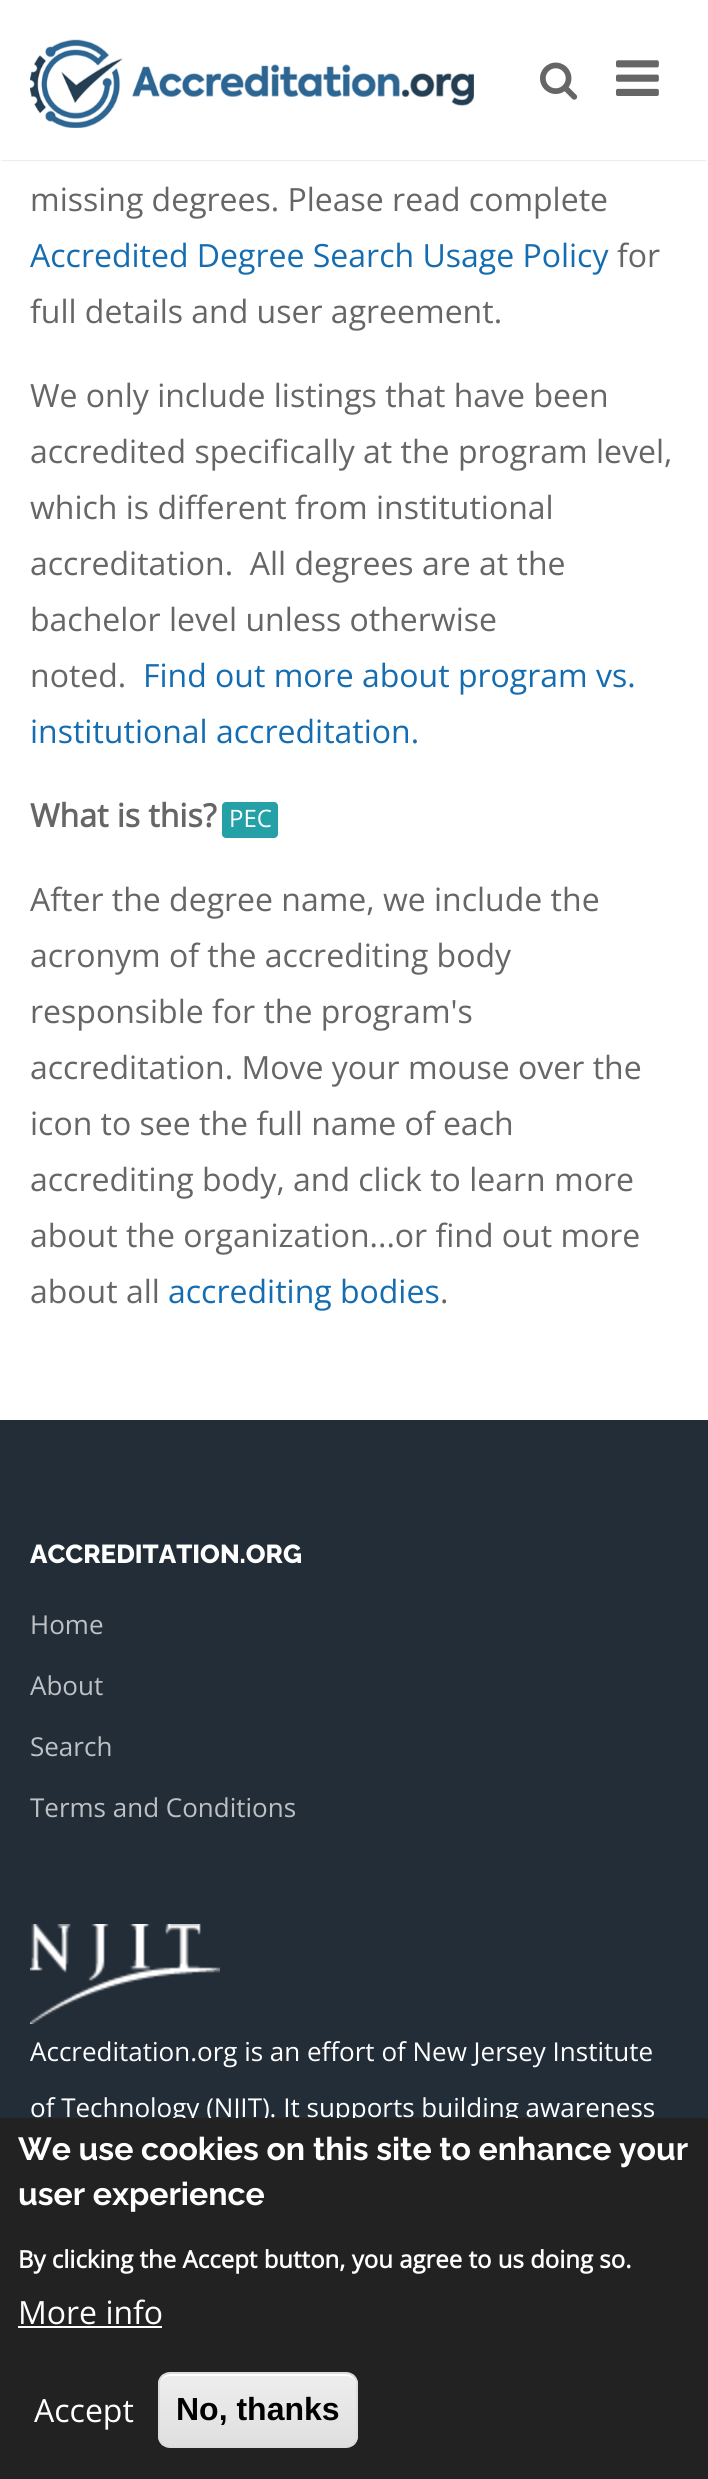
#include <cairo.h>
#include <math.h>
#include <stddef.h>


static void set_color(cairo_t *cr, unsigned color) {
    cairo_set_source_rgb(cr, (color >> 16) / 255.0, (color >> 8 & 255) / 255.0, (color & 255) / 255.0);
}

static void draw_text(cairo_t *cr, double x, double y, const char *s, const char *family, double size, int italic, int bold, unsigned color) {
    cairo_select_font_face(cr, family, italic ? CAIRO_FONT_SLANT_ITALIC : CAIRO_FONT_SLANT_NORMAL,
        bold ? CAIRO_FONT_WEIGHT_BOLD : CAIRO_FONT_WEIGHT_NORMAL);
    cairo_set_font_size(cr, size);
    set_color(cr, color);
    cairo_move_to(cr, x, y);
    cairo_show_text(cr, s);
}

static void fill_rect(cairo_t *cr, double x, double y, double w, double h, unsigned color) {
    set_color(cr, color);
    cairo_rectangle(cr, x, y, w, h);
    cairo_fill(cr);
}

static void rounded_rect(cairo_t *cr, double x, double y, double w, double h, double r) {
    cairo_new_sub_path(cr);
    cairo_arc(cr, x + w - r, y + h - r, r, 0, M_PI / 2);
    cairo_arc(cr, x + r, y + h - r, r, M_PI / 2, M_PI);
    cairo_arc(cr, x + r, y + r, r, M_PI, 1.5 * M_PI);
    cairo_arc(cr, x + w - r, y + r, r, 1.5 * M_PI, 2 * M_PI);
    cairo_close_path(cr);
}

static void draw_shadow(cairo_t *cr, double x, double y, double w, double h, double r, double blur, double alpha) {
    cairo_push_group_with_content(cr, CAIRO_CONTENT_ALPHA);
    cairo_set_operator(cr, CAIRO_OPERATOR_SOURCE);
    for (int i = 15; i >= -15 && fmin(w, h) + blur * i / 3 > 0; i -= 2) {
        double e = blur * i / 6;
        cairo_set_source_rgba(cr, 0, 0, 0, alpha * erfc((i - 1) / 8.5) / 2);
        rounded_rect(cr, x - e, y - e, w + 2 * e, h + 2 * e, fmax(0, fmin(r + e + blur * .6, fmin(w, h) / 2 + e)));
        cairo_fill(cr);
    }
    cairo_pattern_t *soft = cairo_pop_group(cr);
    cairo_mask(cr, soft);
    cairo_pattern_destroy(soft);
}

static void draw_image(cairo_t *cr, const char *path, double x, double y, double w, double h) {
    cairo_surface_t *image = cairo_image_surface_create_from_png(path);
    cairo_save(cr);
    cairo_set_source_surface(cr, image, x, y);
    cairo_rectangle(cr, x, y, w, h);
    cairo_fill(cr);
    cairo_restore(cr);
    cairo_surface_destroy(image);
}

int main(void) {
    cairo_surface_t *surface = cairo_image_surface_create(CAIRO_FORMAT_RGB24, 708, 2479);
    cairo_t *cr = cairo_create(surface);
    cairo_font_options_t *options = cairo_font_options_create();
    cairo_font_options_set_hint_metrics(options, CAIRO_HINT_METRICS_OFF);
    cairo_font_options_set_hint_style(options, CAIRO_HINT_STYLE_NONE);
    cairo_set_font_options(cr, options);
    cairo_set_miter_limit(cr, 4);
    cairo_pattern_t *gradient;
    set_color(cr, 0xFFFFFF);
    cairo_paint(cr);
    set_color(cr, 0x000000);
    draw_shadow(cr, 2, 4, 704, 156, 0, 1, 0.2);
    fill_rect(cr, 0, 2, 708, 158, 0xFFFFFF);
    draw_image(cr, "assets/img1.png", 30, 39, 444, 89);
    draw_image(cr, "assets/img2.png", 540, 62, 38, 38);
    draw_image(cr, "assets/img3.png", 616, 60, 43, 36);
    draw_text(cr, 30, 211, "missing degrees. Please read complete", "Open Sans", 32, 0, 0, 0x666666);
    draw_text(cr, 30, 267, "Accredited Degree Search Usage Policy", "Open Sans", 32, 0, 0, 0x146CB1);
    draw_text(cr, 617, 267, "for", "Open Sans", 32, 0, 0, 0x666666);
    draw_text(cr, 30, 323, "full details and user agreement.", "Open Sans", 32, 0, 0, 0x666666);
    draw_text(cr, 30, 407, "We only include listings that have been", "Open Sans", 32, 0, 0, 0x666666);
    draw_text(cr, 30, 463, "accredited specifically at the program level,", "Open Sans", 32, 0, 0, 0x666666);
    draw_text(cr, 30, 519, "which is different from institutional", "Open Sans", 32, 0, 0, 0x666666);
    draw_text(cr, 30, 575, "accreditation.  All degrees are at the", "Open Sans", 32, 0, 0, 0x666666);
    draw_text(cr, 30, 631, "bachelor level unless otherwise", "Open Sans", 32, 0, 0, 0x666666);
    draw_text(cr, 30, 687, "noted.", "Open Sans", 32, 0, 0, 0x666666);
    draw_text(cr, 143, 687, "Find out more about program vs.", "Open Sans", 32, 0, 0, 0x146CB1);
    draw_text(cr, 30, 743, "institutional accreditation.", "Open Sans", 32, 0, 0, 0x146CB1);
    draw_text(cr, 30, 827, "What is this?", "Open Sans", 32, 0, 1, 0x666666);
    set_color(cr, 0x24A0A7);
    rounded_rect(cr, 222, 802, 56, 36, 4);
    cairo_fill(cr);
    draw_text(cr, 229, 827, "PEC", "Open Sans", 24, 0, 0, 0xFFFFFF);
    draw_text(cr, 30, 911, "After the degree name, we include the", "Open Sans", 32, 0, 0, 0x666666);
    draw_text(cr, 30, 967, "acronym of the accrediting body", "Open Sans", 32, 0, 0, 0x666666);
    draw_text(cr, 30, 1023, "responsible for the program's", "Open Sans", 32, 0, 0, 0x666666);
    draw_text(cr, 30, 1079, "accreditation. Move your mouse over the", "Open Sans", 32, 0, 0, 0x666666);
    draw_text(cr, 30, 1135, "icon to see the full name of each", "Open Sans", 32, 0, 0, 0x666666);
    draw_text(cr, 30, 1191, "accrediting body, and click to learn more", "Open Sans", 32, 0, 0, 0x666666);
    draw_text(cr, 30, 1247, "about the organization...or find out more", "Open Sans", 32, 0, 0, 0x666666);
    draw_text(cr, 30, 1303, "about all", "Open Sans", 32, 0, 0, 0x666666);
    draw_text(cr, 168, 1303, "accrediting bodies", "Open Sans", 32, 0, 0, 0x146CB1);
    draw_text(cr, 440, 1303, ".", "Open Sans", 32, 0, 0, 0x666666);
    fill_rect(cr, 0, 1420, 708, 698, 0x232D37);
    draw_text(cr, 30, 1563, "ACCREDITATION.ORG", "Raleway ExtraBold", 26, 0, 0, 0xFFFFFF);
    draw_text(cr, 30, 1634, "Home", "Open Sans", 26, 0, 0, 0xBDC1C5);
    draw_text(cr, 30, 1695, "About", "Open Sans", 26, 0, 0, 0xBDC1C5);
    draw_text(cr, 30, 1756, "Search", "Open Sans", 26, 0, 0, 0xBDC1C5);
    draw_text(cr, 30, 1817, "Terms and Conditions", "Open Sans", 26, 0, 0, 0xBDC1C5);
    draw_image(cr, "assets/img4.png", 30, 1924, 190, 100);
    draw_text(cr, 30, 2061, "Accreditation.org is an effort of New Jersey Institute", "Open Sans", 26, 0, 0, 0xFFFFFF);
    draw_text(cr, 30, 2117, "of Technology (NJIT). It supports building awareness", "Open Sans", 26, 0, 0, 0xFFFFFF);
    fill_rect(cr, 0, 2118, 708, 361, 0x222222);
    draw_text(cr, 18, 2160, "We use cookies on this site to enhance your", "Raleway", 32, 0, 1, 0xFFFFFF);
    draw_text(cr, 18, 2205, "user experience", "Raleway", 32, 0, 1, 0xFFFFFF);
    draw_text(cr, 18, 2268, "By clicking the Accept button, you agree to us doing so.", "Open Sans", 24, 0, 1, 0xFFFFFF);
    draw_text(cr, 18, 2324, "More info", "Open Sans", 32, 0, 0, 0xFFFFFF);
    fill_rect(cr, 18, 2326, 144, 2, 0xFFFFFF);
    draw_text(cr, 34, 2422, "Accept", "Open Sans", 32, 0, 0, 0xFFFFFF);
    cairo_save(cr);
    rounded_rect(cr, 158, 2372, 200, 76, 12);
    cairo_clip(cr);
    gradient = cairo_pattern_create_linear(258, 2374, 258, 2446);
    cairo_pattern_add_color_stop_rgba(gradient, 0.05, 0.929, 0.929, 0.929, 1);
    cairo_pattern_add_color_stop_rgba(gradient, 1, 0.875, 0.875, 0.875, 1);
    cairo_set_source(cr, gradient);
    cairo_pattern_destroy(gradient);
    cairo_rectangle(cr, 158, 2374, 200, 72);
    cairo_fill(cr);
    cairo_restore(cr);
    cairo_new_path(cr);
    cairo_move_to(cr, 170, 2376);
    cairo_line_to(cr, 346, 2376);
    cairo_curve_to(cr, 352, 2376, 356, 2380, 356, 2386);
    cairo_line_to(cr, 356, 2384);
    cairo_curve_to(cr, 356, 2378, 352, 2374, 346, 2374);
    cairo_line_to(cr, 170, 2374);
    cairo_curve_to(cr, 164, 2374, 160, 2378, 160, 2384);
    cairo_line_to(cr, 160, 2386);
    cairo_curve_to(cr, 160, 2380, 164, 2376, 170, 2376);
    cairo_close_path(cr);
    cairo_fill(cr);
    rounded_rect(cr, 159, 2373, 198, 74, 11);
    set_color(cr, 0xDCDCDC);
    cairo_stroke(cr);
    draw_text(cr, 176, 2420, "No, thanks", "Liberation Sans", 32, 0, 1, 0x000000);
    cairo_surface_write_to_png(surface, "output.png");
    cairo_font_options_destroy(options);
    cairo_destroy(cr);
    cairo_surface_destroy(surface);
    return 0;
}
